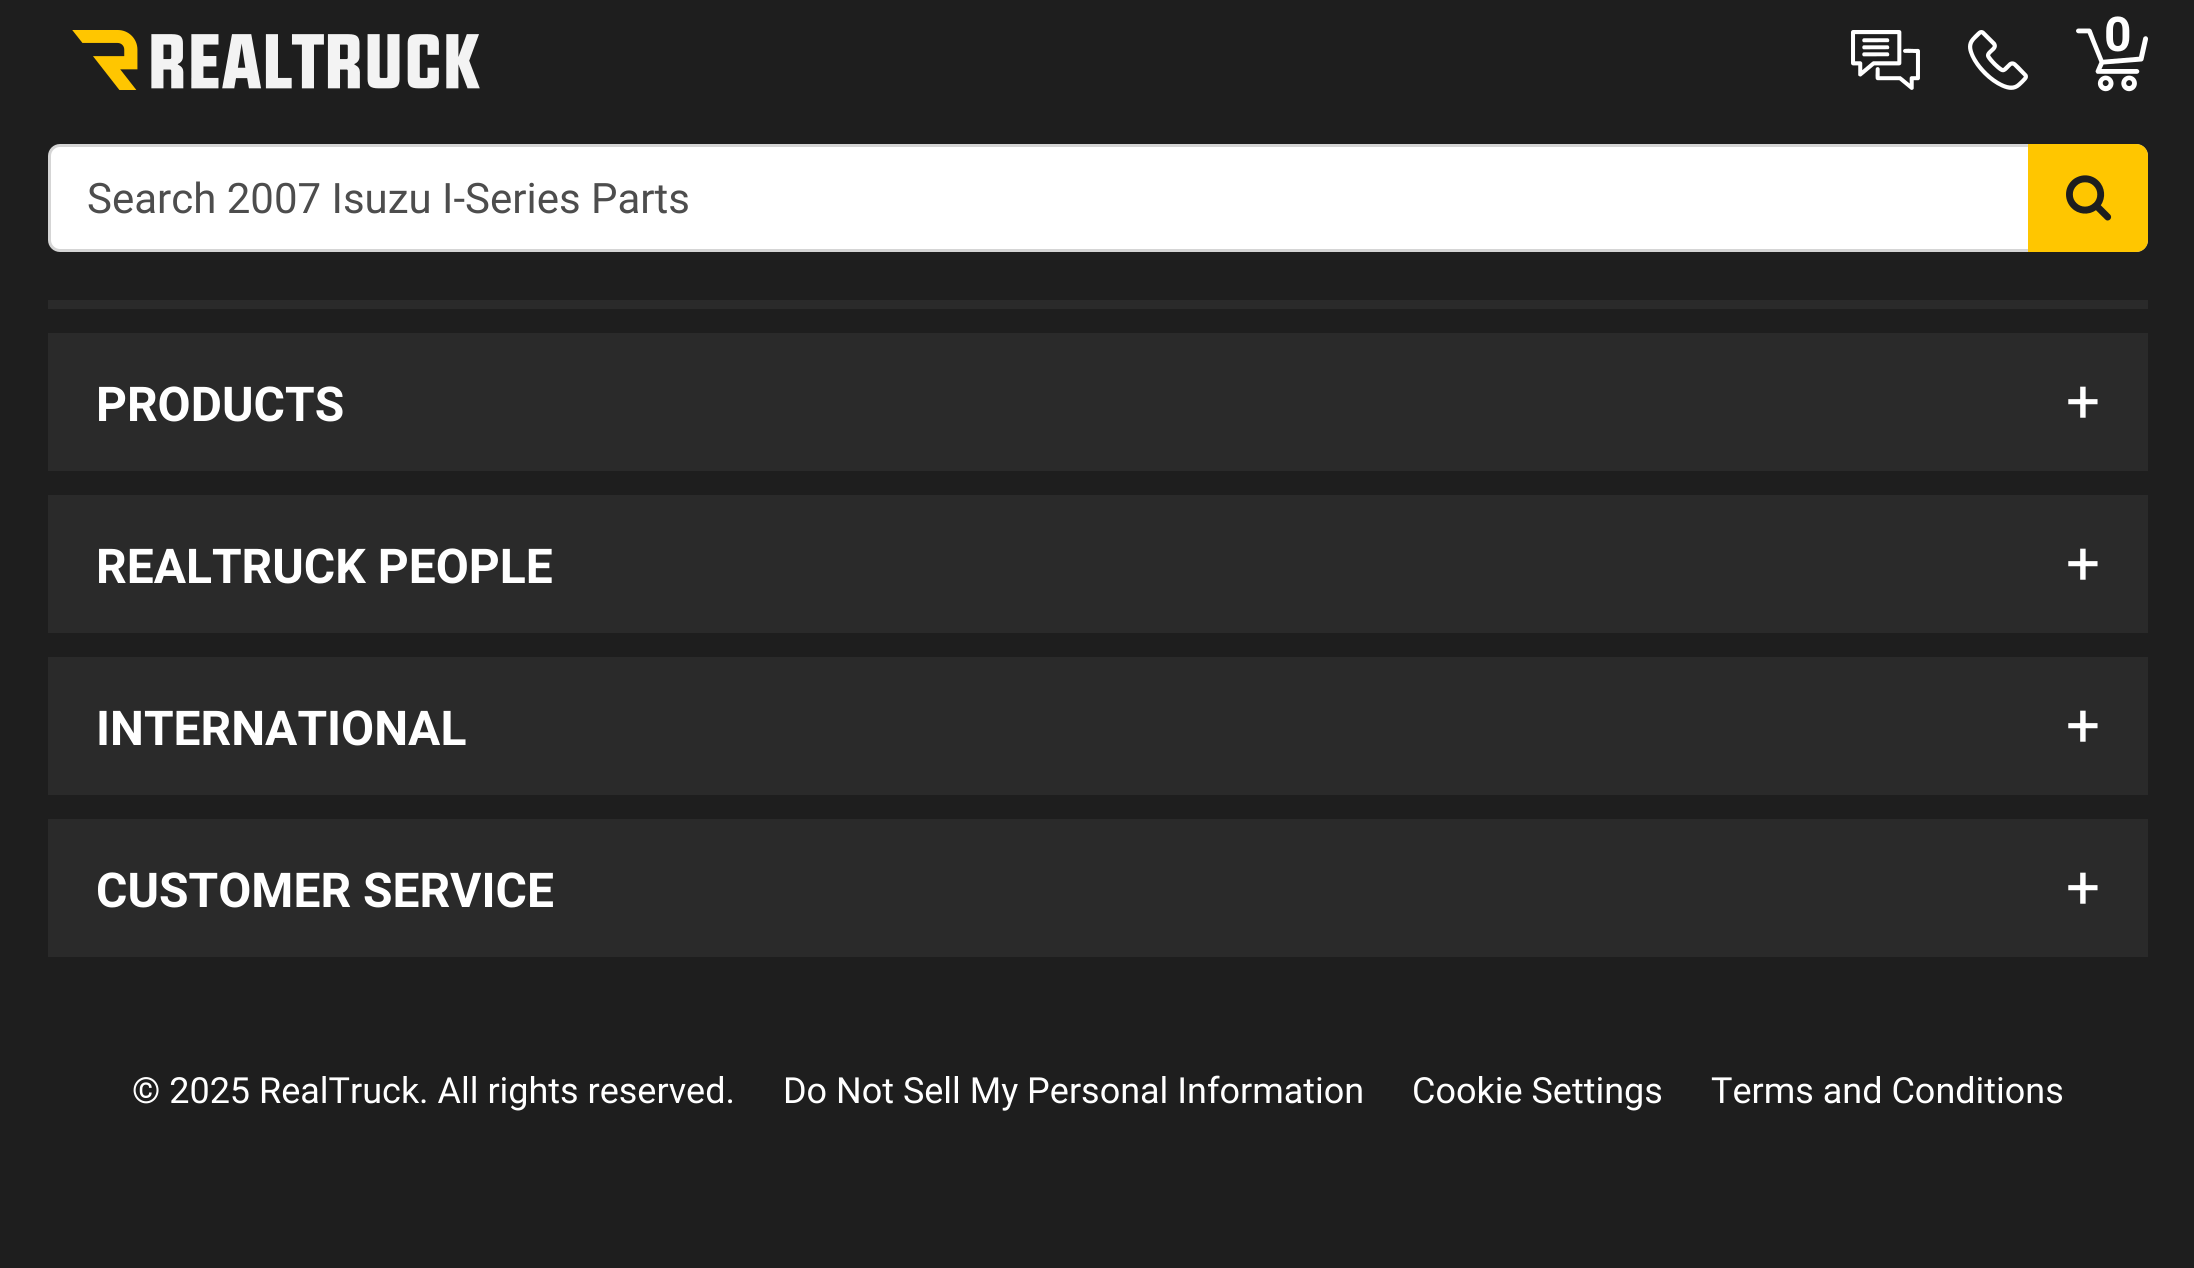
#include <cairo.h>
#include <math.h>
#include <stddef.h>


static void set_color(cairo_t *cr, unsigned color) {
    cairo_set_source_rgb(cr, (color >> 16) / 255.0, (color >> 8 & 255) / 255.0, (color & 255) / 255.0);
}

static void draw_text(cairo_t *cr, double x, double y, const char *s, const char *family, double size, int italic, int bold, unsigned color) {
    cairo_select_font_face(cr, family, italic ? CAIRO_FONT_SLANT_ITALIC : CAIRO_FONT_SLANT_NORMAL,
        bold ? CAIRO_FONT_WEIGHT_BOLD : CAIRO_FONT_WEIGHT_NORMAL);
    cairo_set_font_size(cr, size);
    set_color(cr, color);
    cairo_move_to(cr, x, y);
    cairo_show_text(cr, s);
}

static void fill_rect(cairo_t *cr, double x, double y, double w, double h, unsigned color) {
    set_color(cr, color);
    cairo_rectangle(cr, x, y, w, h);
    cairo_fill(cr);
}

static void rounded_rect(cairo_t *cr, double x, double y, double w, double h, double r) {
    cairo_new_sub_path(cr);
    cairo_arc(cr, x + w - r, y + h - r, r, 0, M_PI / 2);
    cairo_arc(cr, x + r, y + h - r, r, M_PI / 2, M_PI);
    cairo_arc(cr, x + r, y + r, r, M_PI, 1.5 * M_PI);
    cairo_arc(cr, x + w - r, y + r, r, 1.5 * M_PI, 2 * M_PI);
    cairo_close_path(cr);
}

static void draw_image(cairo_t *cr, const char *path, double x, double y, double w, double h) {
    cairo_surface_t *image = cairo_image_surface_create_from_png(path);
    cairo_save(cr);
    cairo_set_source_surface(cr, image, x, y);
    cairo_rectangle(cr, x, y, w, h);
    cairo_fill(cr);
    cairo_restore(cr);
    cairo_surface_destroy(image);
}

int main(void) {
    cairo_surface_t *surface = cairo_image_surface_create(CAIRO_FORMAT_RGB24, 2194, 1268);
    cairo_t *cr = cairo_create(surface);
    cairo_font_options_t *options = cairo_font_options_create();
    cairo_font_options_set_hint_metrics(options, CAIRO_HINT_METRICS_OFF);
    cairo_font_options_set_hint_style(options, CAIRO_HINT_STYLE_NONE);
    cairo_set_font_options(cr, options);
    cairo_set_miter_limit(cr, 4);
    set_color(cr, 0x1E1E1E);
    cairo_paint(cr);
    draw_image(cr, "assets/img1.png", 72, 30, 408, 60);
    draw_image(cr, "assets/img2.png", 1851, 30, 69, 60);
    draw_image(cr, "assets/img3.png", 1968, 30, 60, 60);
    draw_image(cr, "assets/img4.png", 2076, 28, 72, 64);
    draw_text(cr, 2104, 51, "0", "Roboto", 48, 0, 1, 0xFFFFFF);
    rounded_rect(cr, 49.5, 145.5, 2097, 105, 10.5);
    cairo_fill_preserve(cr);
    set_color(cr, 0xD5D5D5);
    cairo_set_line_width(cr, 3);
    cairo_stroke(cr);
    draw_text(cr, 87, 213, "Search 2007 Isuzu I-Series Parts", "Roboto", 42, 0, 0, 0x4D4D4D);
    set_color(cr, 0xFFC600);
    cairo_new_path(cr);
    cairo_move_to(cr, 2029.5, 145.5);
    cairo_line_to(cr, 2136, 145.5);
    cairo_curve_to(cr, 2142, 145.5, 2146.5, 150, 2146.5, 156);
    cairo_line_to(cr, 2146.5, 240);
    cairo_curve_to(cr, 2146.5, 246, 2142, 250.5, 2136, 250.5);
    cairo_line_to(cr, 2029.5, 250.5);
    cairo_close_path(cr);
    cairo_fill_preserve(cr);
    cairo_stroke(cr);
    draw_image(cr, "assets/img5.png", 2066, 175, 46, 46);
    fill_rect(cr, 48, 300, 2100, 9, 0x2A2A2A);
    fill_rect(cr, 48, 333, 2100, 138, 0x2A2A2A);
    draw_text(cr, 96, 421, "PRODUCTS", "Roboto", 48, 0, 1, 0xFFFFFF);
    draw_text(cr, 2066, 422, "+", "Roboto", 60, 0, 0, 0xFFFFFF);
    fill_rect(cr, 48, 495, 2100, 138, 0x2A2A2A);
    draw_text(cr, 96, 583, "REALTRUCK PEOPLE", "Roboto", 48, 0, 1, 0xFFFFFF);
    draw_text(cr, 2066, 584, "+", "Roboto", 60, 0, 0, 0xFFFFFF);
    fill_rect(cr, 48, 657, 2100, 138, 0x2A2A2A);
    draw_text(cr, 96, 745, "INTERNATIONAL", "Roboto", 48, 0, 1, 0xFFFFFF);
    draw_text(cr, 2066, 746, "+", "Roboto", 60, 0, 0, 0xFFFFFF);
    fill_rect(cr, 48, 819, 2100, 138, 0x2A2A2A);
    draw_text(cr, 96, 907, "CUSTOMER SERVICE", "Roboto", 48, 0, 1, 0xFFFFFF);
    draw_text(cr, 2066, 908, "+", "Roboto", 60, 0, 0, 0xFFFFFF);
    draw_text(cr, 132, 1103, "© 2025 RealTruck. All rights reserved.", "Roboto", 36, 0, 0, 0xFFFFFF);
    draw_text(cr, 783, 1103, "Do Not Sell My Personal Information", "Roboto", 36, 0, 0, 0xFFFFFF);
    draw_text(cr, 1412, 1103, "Cookie Settings", "Roboto", 36, 0, 0, 0xFFFFFF);
    draw_text(cr, 1711, 1103, "Terms and Conditions", "Roboto", 36, 0, 0, 0xFFFFFF);
    cairo_surface_write_to_png(surface, "output.png");
    cairo_font_options_destroy(options);
    cairo_destroy(cr);
    cairo_surface_destroy(surface);
    return 0;
}
